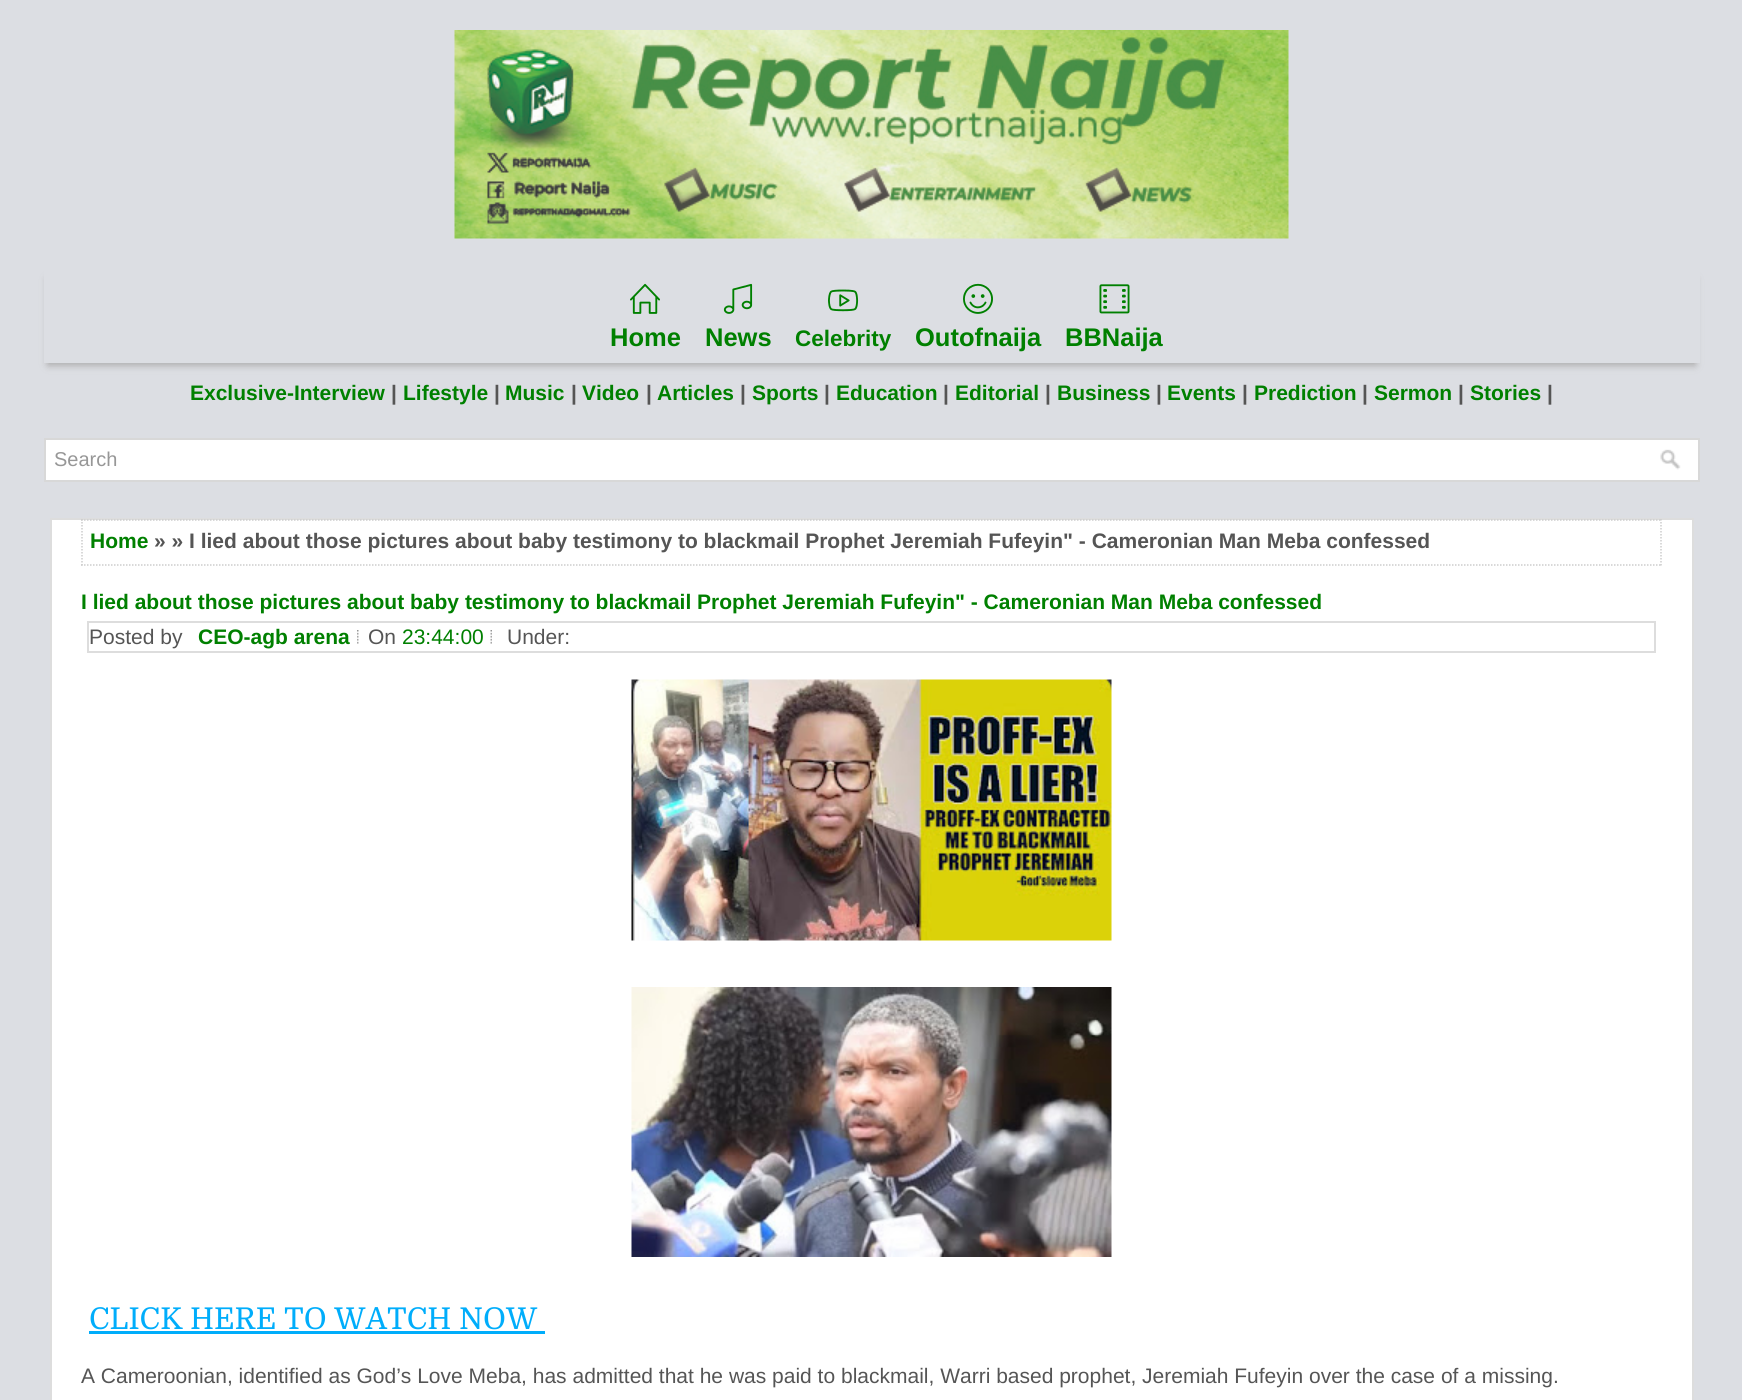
#include <cairo.h>
#include <math.h>
#include <stddef.h>


static void set_color(cairo_t *cr, unsigned color) {
    cairo_set_source_rgb(cr, (color >> 16) / 255.0, (color >> 8 & 255) / 255.0, (color & 255) / 255.0);
}

static void draw_text(cairo_t *cr, double x, double y, const char *s, const char *family, double size, int italic, int bold, unsigned color) {
    cairo_select_font_face(cr, family, italic ? CAIRO_FONT_SLANT_ITALIC : CAIRO_FONT_SLANT_NORMAL,
        bold ? CAIRO_FONT_WEIGHT_BOLD : CAIRO_FONT_WEIGHT_NORMAL);
    cairo_set_font_size(cr, size);
    set_color(cr, color);
    cairo_move_to(cr, x, y);
    cairo_show_text(cr, s);
}

static void fill_rect(cairo_t *cr, double x, double y, double w, double h, unsigned color) {
    set_color(cr, color);
    cairo_rectangle(cr, x, y, w, h);
    cairo_fill(cr);
}

static void rounded_rect(cairo_t *cr, double x, double y, double w, double h, double r) {
    cairo_new_sub_path(cr);
    cairo_arc(cr, x + w - r, y + h - r, r, 0, M_PI / 2);
    cairo_arc(cr, x + r, y + h - r, r, M_PI / 2, M_PI);
    cairo_arc(cr, x + r, y + r, r, M_PI, 1.5 * M_PI);
    cairo_arc(cr, x + w - r, y + r, r, 1.5 * M_PI, 2 * M_PI);
    cairo_close_path(cr);
}

static void draw_shadow(cairo_t *cr, double x, double y, double w, double h, double r, double blur, double alpha) {
    cairo_push_group_with_content(cr, CAIRO_CONTENT_ALPHA);
    cairo_set_operator(cr, CAIRO_OPERATOR_SOURCE);
    for (int i = 15; i >= -15 && fmin(w, h) + blur * i / 3 > 0; i -= 2) {
        double e = blur * i / 6;
        cairo_set_source_rgba(cr, 0, 0, 0, alpha * erfc((i - 1) / 8.5) / 2);
        rounded_rect(cr, x - e, y - e, w + 2 * e, h + 2 * e, fmax(0, fmin(r + e + blur * .6, fmin(w, h) / 2 + e)));
        cairo_fill(cr);
    }
    cairo_pattern_t *soft = cairo_pop_group(cr);
    cairo_mask(cr, soft);
    cairo_pattern_destroy(soft);
}

static void draw_image(cairo_t *cr, const char *path, double x, double y, double w, double h) {
    cairo_surface_t *image = cairo_image_surface_create_from_png(path);
    cairo_save(cr);
    cairo_set_source_surface(cr, image, x, y);
    cairo_rectangle(cr, x, y, w, h);
    cairo_fill(cr);
    cairo_restore(cr);
    cairo_surface_destroy(image);
}

int main(void) {
    cairo_surface_t *surface = cairo_image_surface_create(CAIRO_FORMAT_RGB24, 1742, 1400);
    cairo_t *cr = cairo_create(surface);
    cairo_font_options_t *options = cairo_font_options_create();
    cairo_font_options_set_hint_metrics(options, CAIRO_HINT_METRICS_OFF);
    cairo_font_options_set_hint_style(options, CAIRO_HINT_STYLE_NONE);
    cairo_set_font_options(cr, options);
    cairo_set_miter_limit(cr, 4);
    set_color(cr, 0xDCDEE3);
    cairo_paint(cr);
    draw_image(cr, "assets/img1.png", 454, 30, 835, 209);
    cairo_save(cr);
    cairo_set_fill_rule(cr, CAIRO_FILL_RULE_EVEN_ODD);
    cairo_new_path(cr);
    cairo_move_to(cr, 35, 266);
    cairo_line_to(cr, 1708, 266);
    cairo_line_to(cr, 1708, 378);
    cairo_line_to(cr, 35, 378);
    cairo_close_path(cr);
    cairo_move_to(cr, 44, 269);
    cairo_line_to(cr, 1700, 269);
    cairo_line_to(cr, 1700, 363);
    cairo_line_to(cr, 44, 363);
    cairo_close_path(cr);
    cairo_clip(cr);
    set_color(cr, 0xA7A6A6);
    draw_shadow(cr, 48, 279, 1647, 86, 0, 4, 1);
    cairo_restore(cr);
    draw_image(cr, "assets/img2.png", 630, 283, 30, 31);
    draw_text(cr, 610, 346, "Home", "Liberation Sans", 25.5, 0, 1, 0x008000);
    draw_image(cr, "assets/img3.png", 723, 283, 30, 31);
    draw_text(cr, 705, 346, "News", "Liberation Sans", 25.5, 0, 1, 0x008000);
    draw_image(cr, "assets/img4.png", 828, 289, 31, 23);
    draw_text(cr, 795, 346, "Celebrity", "Liberation Sans", 22.5, 0, 1, 0x008000);
    draw_image(cr, "assets/img5.png", 963, 283, 30, 31);
    draw_text(cr, 915, 346, "Outofnaija", "Liberation Sans", 25.5, 0, 1, 0x008000);
    draw_image(cr, "assets/img6.png", 1099, 284, 31, 30);
    draw_text(cr, 1065, 346, "BBNaija", "Liberation Sans", 25.5, 0, 1, 0x008000);
    draw_text(cr, 190, 400, "Exclusive-Interview", "Liberation Sans", 21, 0, 1, 0x008000);
    draw_text(cr, 391, 400, "|", "Liberation Sans", 21, 0, 1, 0x555555);
    draw_text(cr, 403, 400, "Lifestyle", "Liberation Sans", 21, 0, 1, 0x008000);
    draw_text(cr, 494, 400, "|", "Liberation Sans", 21, 0, 1, 0x555555);
    draw_text(cr, 505, 400, "Music", "Liberation Sans", 21, 0, 1, 0x008000);
    draw_text(cr, 571, 400, "|", "Liberation Sans", 21, 0, 1, 0x555555);
    draw_text(cr, 582, 400, "Video", "Liberation Sans", 21, 0, 1, 0x008000);
    draw_text(cr, 646, 400, "|", "Liberation Sans", 21, 0, 1, 0x555555);
    draw_text(cr, 657, 400, "Articles", "Liberation Sans", 21, 0, 1, 0x008000);
    draw_text(cr, 740, 400, "|", "Liberation Sans", 21, 0, 1, 0x555555);
    draw_text(cr, 752, 400, "Sports", "Liberation Sans", 21, 0, 1, 0x008000);
    draw_text(cr, 824, 400, "|", "Liberation Sans", 21, 0, 1, 0x555555);
    draw_text(cr, 836, 400, "Education", "Liberation Sans", 21, 0, 1, 0x008000);
    draw_text(cr, 943, 400, "|", "Liberation Sans", 21, 0, 1, 0x555555);
    draw_text(cr, 955, 400, "Editorial", "Liberation Sans", 21, 0, 1, 0x008000);
    draw_text(cr, 1045, 400, "|", "Liberation Sans", 21, 0, 1, 0x555555);
    draw_text(cr, 1057, 400, "Business", "Liberation Sans", 21, 0, 1, 0x008000);
    draw_text(cr, 1156, 400, "|", "Liberation Sans", 21, 0, 1, 0x555555);
    draw_text(cr, 1167, 400, "Events", "Liberation Sans", 21, 0, 1, 0x008000);
    draw_text(cr, 1242, 400, "|", "Liberation Sans", 21, 0, 1, 0x555555);
    draw_text(cr, 1254, 400, "Prediction", "Liberation Sans", 21, 0, 1, 0x008000);
    draw_text(cr, 1362, 400, "|", "Liberation Sans", 21, 0, 1, 0x555555);
    draw_text(cr, 1374, 400, "Sermon", "Liberation Sans", 21, 0, 1, 0x008000);
    draw_text(cr, 1458, 400, "|", "Liberation Sans", 21, 0, 1, 0x555555);
    draw_text(cr, 1470, 400, "Stories", "Liberation Sans", 21, 0, 1, 0x008000);
    draw_text(cr, 1547, 400, "|", "Liberation Sans", 21, 0, 1, 0x555555);
    fill_rect(cr, 46, 440, 1652, 40, 0xFFFFFF);
    draw_image(cr, "assets/img7.png", 1660, 449, 21, 21);
    cairo_rectangle(cr, 45, 439, 1654, 42);
    set_color(cr, 0xD8D8D8);
    cairo_stroke(cr);
    draw_text(cr, 54, 466, "Search", "Liberation Sans", 20, 0, 0, 0x979797);
    set_color(cr, 0xFFFFFF);
    cairo_rectangle(cr, 51, 519, 1642, 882);
    cairo_fill_preserve(cr);
    set_color(cr, 0xDDDDDD);
    cairo_stroke(cr);
    cairo_new_path(cr);
    cairo_move_to(cr, 81, 520);
    cairo_line_to(cr, 1662, 520);
    set_color(cr, 0xCCCCCC);
    cairo_set_line_width(cr, 1.5);
    cairo_set_dash(cr, (double[]){1.5, 1.5}, 2, 0);
    cairo_stroke(cr);
    cairo_new_path(cr);
    cairo_move_to(cr, 1661, 519);
    cairo_line_to(cr, 1661, 565.5);
    cairo_stroke(cr);
    cairo_new_path(cr);
    cairo_move_to(cr, 81, 565);
    cairo_line_to(cr, 1662, 565);
    cairo_stroke(cr);
    cairo_new_path(cr);
    cairo_move_to(cr, 82, 519);
    cairo_line_to(cr, 82, 565.5);
    cairo_stroke(cr);
    draw_text(cr, 90, 548, "Home", "Liberation Sans", 21, 0, 1, 0x008000);
    draw_text(cr, 154, 548, "» » I lied about those pictures about baby testimony to blackmail Prophet Jeremiah Fufeyin\" - Cameronian Man Meba confessed", "Liberation Sans", 21, 0, 1, 0x555555);
    draw_text(cr, 81, 609, "I lied about those pictures about baby testimony to blackmail Prophet Jeremiah Fufeyin\" - Cameronian Man Meba confessed", "Liberation Sans", 21, 0, 1, 0x008000);
    cairo_rectangle(cr, 88, 622, 1567, 30);
    set_color(cr, 0xDDDDDD);
    cairo_set_line_width(cr, 2);
    cairo_set_dash(cr, NULL, 0, 0);
    cairo_stroke(cr);
    draw_text(cr, 89, 644, "Posted by", "Liberation Sans", 21, 0, 0, 0x555555);
    draw_text(cr, 198, 644, "CEO-agb arena", "Liberation Sans", 21, 0, 1, 0x008000);
    draw_image(cr, "assets/img8.png", 357, 630, 2, 14);
    draw_text(cr, 368, 644, "On", "Liberation Sans", 21, 0, 0, 0x555555);
    draw_text(cr, 402, 644, "23:44:00", "Liberation Sans", 21, 0, 0, 0x008000);
    draw_image(cr, "assets/img9.png", 490, 630, 2, 14);
    draw_text(cr, 507, 644, "Under:", "Liberation Sans", 21, 0, 0, 0x555555);
    draw_image(cr, "assets/img10.png", 631, 679, 481, 262);
    draw_image(cr, "assets/img11.png", 631, 987, 481, 270);
    draw_text(cr, 89, 1329, "CLICK HERE TO WATCH NOW", "Domine", 30, 0, 0, 0x00ADFB);
    fill_rect(cr, 89, 1331, 456, 3, 0x00ADFB);
    draw_text(cr, 81, 1383, "A Cameroonian, identified as God’s Love Meba, has admitted that he was paid to blackmail, Warri based prophet, Jeremiah Fufeyin over the case of a missing.", "Liberation Sans", 21, 0, 0, 0x555555);
    cairo_surface_write_to_png(surface, "output.png");
    cairo_font_options_destroy(options);
    cairo_destroy(cr);
    cairo_surface_destroy(surface);
    return 0;
}
